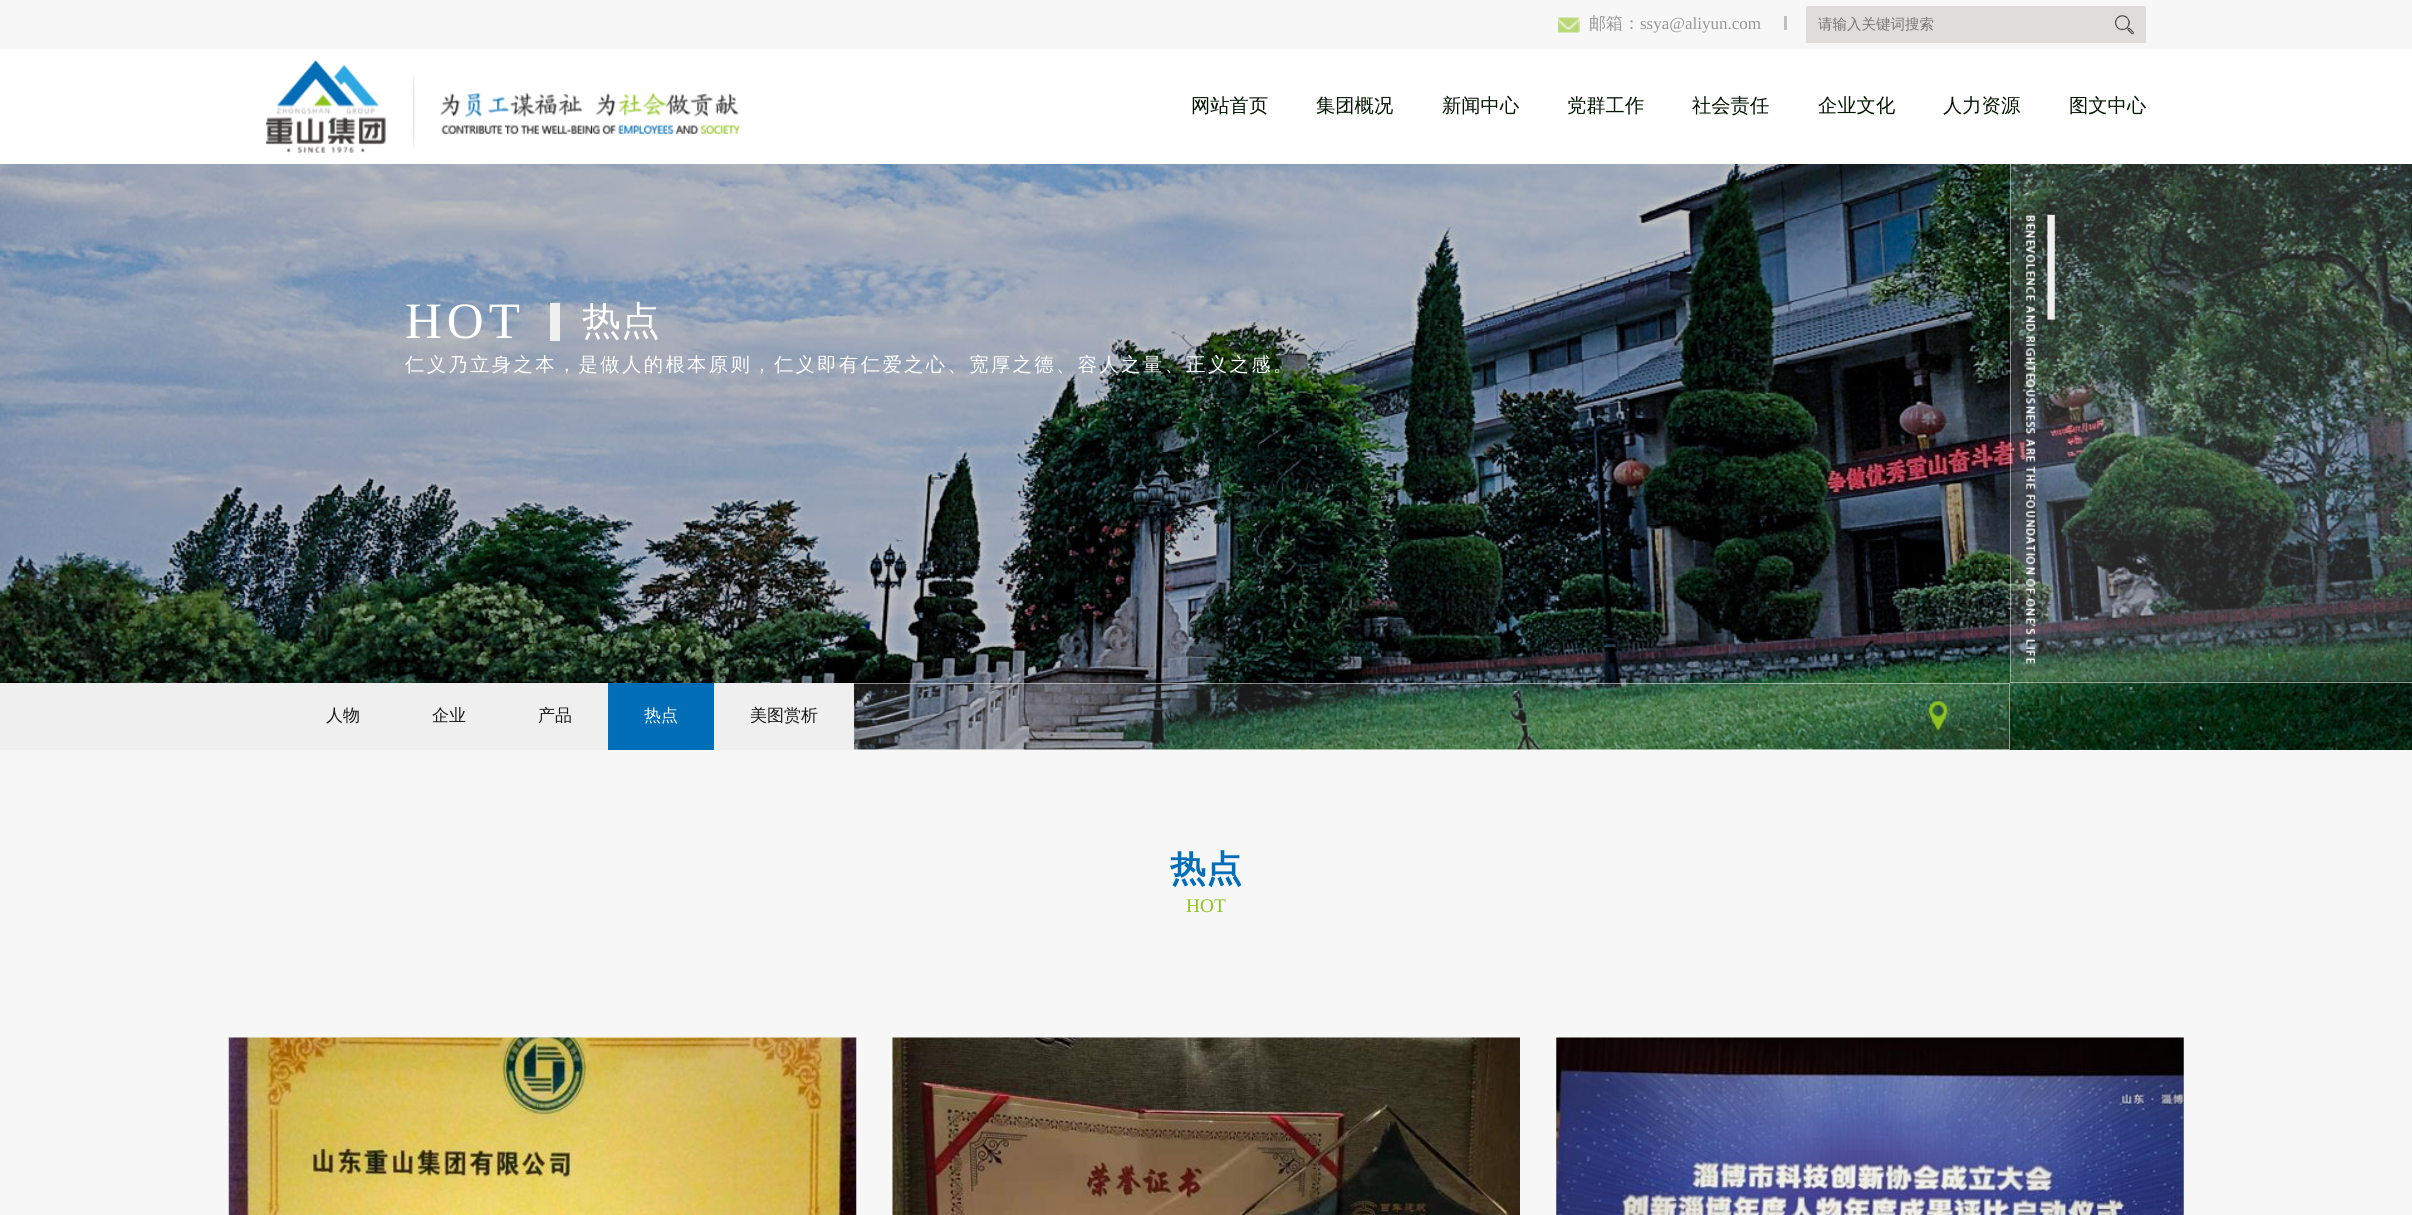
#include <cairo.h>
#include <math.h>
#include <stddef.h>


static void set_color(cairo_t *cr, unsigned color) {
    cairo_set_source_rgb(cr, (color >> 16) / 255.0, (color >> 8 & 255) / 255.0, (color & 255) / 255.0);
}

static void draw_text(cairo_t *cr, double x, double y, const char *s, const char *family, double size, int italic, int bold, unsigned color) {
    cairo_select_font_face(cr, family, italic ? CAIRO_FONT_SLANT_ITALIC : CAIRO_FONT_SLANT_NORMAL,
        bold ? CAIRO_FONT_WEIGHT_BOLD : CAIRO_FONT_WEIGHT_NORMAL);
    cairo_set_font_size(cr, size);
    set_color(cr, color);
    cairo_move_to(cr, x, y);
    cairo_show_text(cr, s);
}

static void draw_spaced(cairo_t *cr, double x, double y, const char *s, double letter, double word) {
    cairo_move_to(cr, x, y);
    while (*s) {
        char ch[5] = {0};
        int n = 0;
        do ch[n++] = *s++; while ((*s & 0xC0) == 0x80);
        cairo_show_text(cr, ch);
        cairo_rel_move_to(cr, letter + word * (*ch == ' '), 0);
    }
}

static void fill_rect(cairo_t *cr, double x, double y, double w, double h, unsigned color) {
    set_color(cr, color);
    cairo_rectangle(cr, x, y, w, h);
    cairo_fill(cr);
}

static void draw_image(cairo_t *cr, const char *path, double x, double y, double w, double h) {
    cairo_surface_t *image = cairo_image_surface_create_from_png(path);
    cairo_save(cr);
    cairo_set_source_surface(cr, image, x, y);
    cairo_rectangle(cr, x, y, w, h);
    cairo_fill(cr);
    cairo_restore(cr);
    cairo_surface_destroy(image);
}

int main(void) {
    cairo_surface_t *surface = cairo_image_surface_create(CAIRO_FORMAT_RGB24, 2412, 1215);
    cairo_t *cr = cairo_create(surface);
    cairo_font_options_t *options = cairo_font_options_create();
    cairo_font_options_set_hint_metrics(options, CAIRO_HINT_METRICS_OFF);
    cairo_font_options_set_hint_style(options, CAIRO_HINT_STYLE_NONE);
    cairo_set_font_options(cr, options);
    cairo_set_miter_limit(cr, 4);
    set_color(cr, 0xF7F7F7);
    cairo_paint(cr);
    draw_image(cr, "assets/img1.png", 1558, 17, 22, 16);
    draw_text(cr, 1589, 29, "邮箱：", "WenQuanYi Zen Hei Medium", 17, 0, 0, 0x969696);
    draw_text(cr, 1640, 29, "ssya@aliyun.com", "Liberation Serif", 17, 0, 0, 0x969696);
    fill_rect(cr, 1784, 16, 3, 14, 0xBFBFBF);
    fill_rect(cr, 1806, 6, 340, 37, 0xE0DCDC);
    draw_text(cr, 1818, 29, "请输入关键词搜索", "WenQuanYi Zen Hei Medium", 14.5, 0, 0, 0x757575);
    draw_image(cr, "assets/img2.png", 2115, 15, 19, 20);
    draw_image(cr, "assets/img5.png", 0, 164, 2412, 586);
    cairo_set_source_rgba(cr, 1, 1, 1, 0.1);
    cairo_rectangle(cr, 2010, 164, 402, 519);
    cairo_fill(cr);
    cairo_rectangle(cr, 2010.5, 155.5, 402, 527);
    cairo_set_source_rgba(cr, 1, 1, 1, 0.5);
    cairo_set_line_width(cr, 1);
    cairo_stroke(cr);
    fill_rect(cr, 0, 49, 2412, 115, 0xFFFFFF);
    draw_image(cr, "assets/img3.png", 266, 60, 474, 93);
    draw_text(cr, 1191, 112, "网站首页", "WenQuanYi Zen Hei Medium", 19.3, 0, 0, 0x001400);
    draw_text(cr, 1316, 112, "集团概况", "WenQuanYi Zen Hei Medium", 19.3, 0, 0, 0x001400);
    draw_text(cr, 1442, 112, "新闻中心", "WenQuanYi Zen Hei Medium", 19.3, 0, 0, 0x001400);
    draw_text(cr, 1567, 112, "党群工作", "WenQuanYi Zen Hei Medium", 19.3, 0, 0, 0x001400);
    draw_text(cr, 1692, 112, "社会责任", "WenQuanYi Zen Hei Medium", 19.3, 0, 0, 0x001400);
    draw_text(cr, 1818, 112, "企业文化", "WenQuanYi Zen Hei Medium", 19.3, 0, 0, 0x001400);
    draw_text(cr, 1943, 112, "人力资源", "WenQuanYi Zen Hei Medium", 19.3, 0, 0, 0x001400);
    draw_text(cr, 2069, 112, "图文中心", "WenQuanYi Zen Hei Medium", 19.3, 0, 0, 0x001400);
    draw_image(cr, "assets/img4.png", 2011, 164, 400, 517);
    cairo_select_font_face(cr, "Liberation Serif", CAIRO_FONT_SLANT_NORMAL, CAIRO_FONT_WEIGHT_NORMAL);
    cairo_set_font_size(cr, 51);
    set_color(cr, 0xFFFFFF);
    draw_spaced(cr, 405, 338, "HOT", 5, 0);
    fill_rect(cr, 550, 303, 10, 38, 0xEFEFEF);
    draw_text(cr, 582, 334, "热点", "WenQuanYi Zen Hei Medium", 39, 0, 0, 0xFFFFFF);
    cairo_set_font_size(cr, 19.3);
    draw_spaced(cr, 405, 371, "仁义乃立身之本，是做人的根本原则，仁义即有仁爱之心、宽厚之德、容人之量、正义之感。", 2.4, 0);
    cairo_set_source_rgba(cr, 1, 1, 1, 0.1);
    cairo_rectangle(cr, 854, 683, 1156, 67);
    cairo_fill(cr);
    cairo_rectangle(cr, 0.5, 683.5, 2009, 66);
    cairo_set_source_rgba(cr, 1, 1, 1, 0.5);
    cairo_stroke(cr);
    draw_image(cr, "assets/img6.png", 1928, 701, 20, 29);
    fill_rect(cr, 0, 683, 854, 67, 0xEFEFEF);
    draw_text(cr, 326, 721, "人物", "WenQuanYi Zen Hei Medium", 17, 0, 0, 0x1A1A1A);
    draw_text(cr, 432, 721, "企业", "WenQuanYi Zen Hei Medium", 17, 0, 0, 0x1A1A1A);
    draw_text(cr, 538, 721, "产品", "WenQuanYi Zen Hei Medium", 17, 0, 0, 0x1A1A1A);
    fill_rect(cr, 608, 683, 106, 67, 0x036EB8);
    draw_text(cr, 644, 721, "热点", "WenQuanYi Zen Hei Medium", 17, 0, 0, 0xFFFFFF);
    draw_text(cr, 750, 721, "美图赏析", "WenQuanYi Zen Hei Medium", 17, 0, 0, 0x1A1A1A);
    draw_text(cr, 1170, 881, "热点", "WenQuanYi Zen Hei", 36, 0, 1, 0x036EB8);
    draw_text(cr, 1186, 912, "HOT", "Liberation Serif", 19.3, 0, 0, 0x8EC31F);
    draw_image(cr, "assets/img7.png", 228, 1037, 629, 178);
    draw_image(cr, "assets/img8.png", 892, 1037, 628, 178);
    draw_image(cr, "assets/img9.png", 1556, 1037, 628, 178);
    cairo_surface_write_to_png(surface, "output.png");
    cairo_font_options_destroy(options);
    cairo_destroy(cr);
    cairo_surface_destroy(surface);
    return 0;
}
